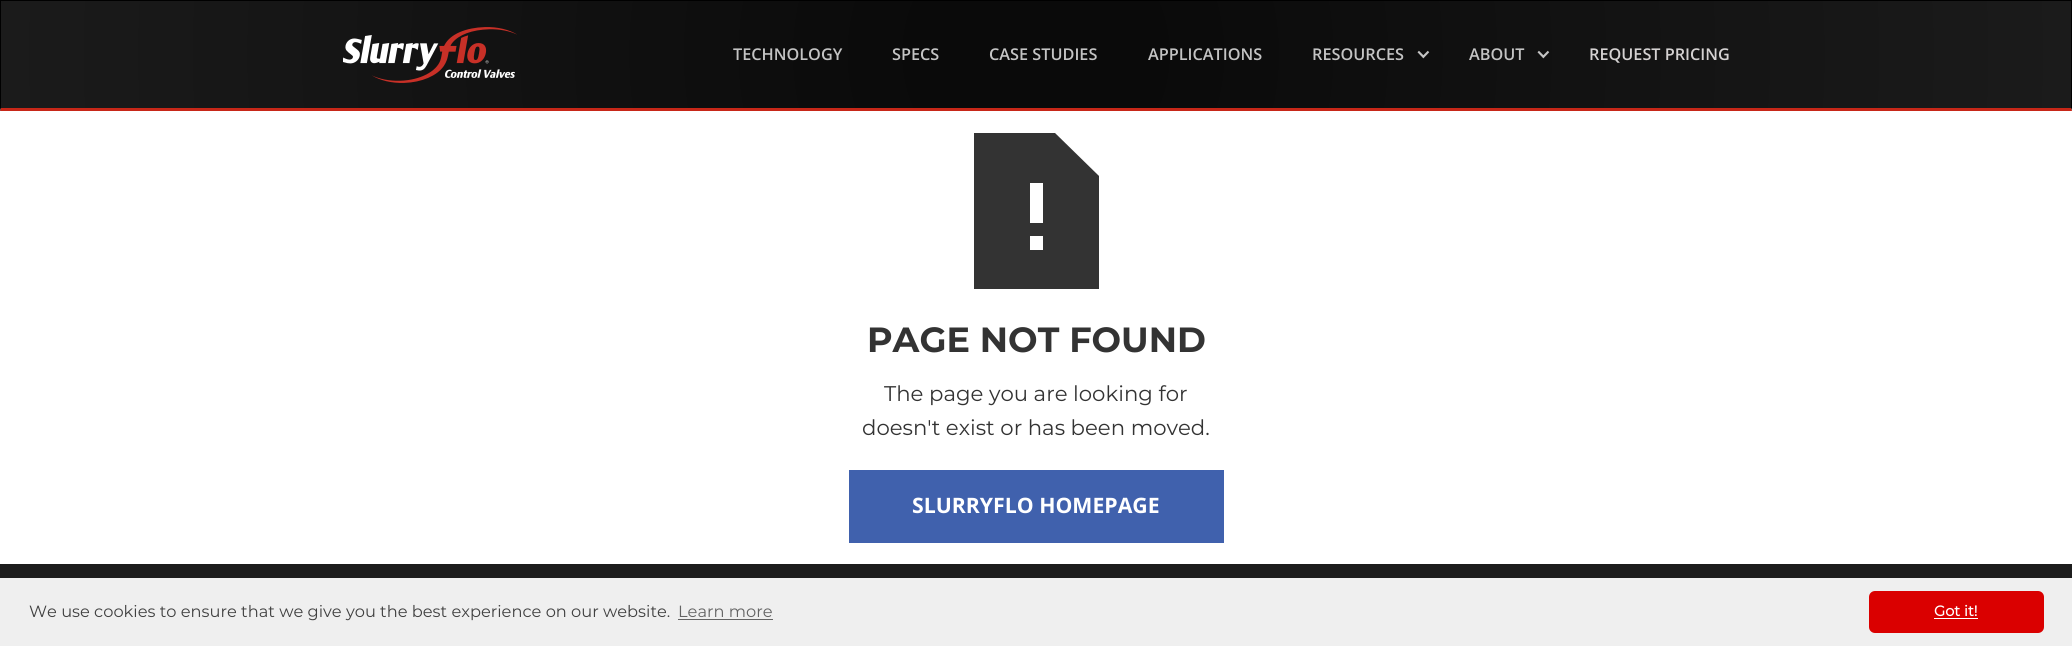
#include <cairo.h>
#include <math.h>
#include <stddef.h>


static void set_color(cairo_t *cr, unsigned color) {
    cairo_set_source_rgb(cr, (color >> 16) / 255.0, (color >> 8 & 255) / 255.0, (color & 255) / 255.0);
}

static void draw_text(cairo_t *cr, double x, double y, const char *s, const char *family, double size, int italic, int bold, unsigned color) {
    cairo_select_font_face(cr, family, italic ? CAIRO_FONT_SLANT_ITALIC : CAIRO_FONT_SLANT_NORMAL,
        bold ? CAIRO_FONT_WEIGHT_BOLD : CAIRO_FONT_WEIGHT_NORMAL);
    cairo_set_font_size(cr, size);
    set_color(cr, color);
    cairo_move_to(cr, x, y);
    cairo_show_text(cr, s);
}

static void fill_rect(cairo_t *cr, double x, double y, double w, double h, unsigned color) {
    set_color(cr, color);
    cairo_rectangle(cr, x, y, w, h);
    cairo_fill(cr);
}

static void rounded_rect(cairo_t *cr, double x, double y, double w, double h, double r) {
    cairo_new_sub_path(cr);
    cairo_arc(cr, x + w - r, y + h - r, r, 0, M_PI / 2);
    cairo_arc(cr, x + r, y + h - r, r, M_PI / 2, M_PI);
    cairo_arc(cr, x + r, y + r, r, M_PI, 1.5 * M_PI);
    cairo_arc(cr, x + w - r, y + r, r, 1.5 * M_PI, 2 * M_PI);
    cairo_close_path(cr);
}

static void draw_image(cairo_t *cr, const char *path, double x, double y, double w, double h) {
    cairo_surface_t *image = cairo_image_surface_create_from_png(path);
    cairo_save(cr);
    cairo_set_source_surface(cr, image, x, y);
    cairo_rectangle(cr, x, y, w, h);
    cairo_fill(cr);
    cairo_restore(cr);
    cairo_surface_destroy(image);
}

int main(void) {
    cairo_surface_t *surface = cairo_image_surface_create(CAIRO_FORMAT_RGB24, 2072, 646);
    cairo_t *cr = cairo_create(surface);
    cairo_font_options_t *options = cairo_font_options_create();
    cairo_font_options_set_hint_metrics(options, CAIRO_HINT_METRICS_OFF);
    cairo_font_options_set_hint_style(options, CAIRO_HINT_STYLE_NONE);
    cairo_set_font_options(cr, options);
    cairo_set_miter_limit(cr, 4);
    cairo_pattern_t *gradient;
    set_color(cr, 0xFFFFFF);
    cairo_paint(cr);
    gradient = cairo_pattern_create_radial(1036, 54, 0, 1036, 54, 1036);
    cairo_pattern_add_color_stop_rgba(gradient, 0.1, 0.039, 0.039, 0.039, 1);
    cairo_pattern_add_color_stop_rgba(gradient, 1, 0.106, 0.106, 0.106, 1);
    cairo_set_source(cr, gradient);
    cairo_pattern_destroy(gradient);
    cairo_rectangle(cr, 1, 1, 2070, 107);
    cairo_fill(cr);
    fill_rect(cr, 0, 0, 2072, 1, 0x000000);
    cairo_new_path(cr);
    cairo_move_to(cr, 2072, 0);
    cairo_line_to(cr, 2072, 111);
    cairo_line_to(cr, 2071, 108);
    cairo_line_to(cr, 2071, 1);
    cairo_close_path(cr);
    cairo_fill(cr);
    set_color(cr, 0xC72718);
    cairo_new_path(cr);
    cairo_move_to(cr, 2072, 111);
    cairo_line_to(cr, 0, 111);
    cairo_line_to(cr, 1, 108);
    cairo_line_to(cr, 2071, 108);
    cairo_close_path(cr);
    cairo_fill(cr);
    set_color(cr, 0x000000);
    cairo_new_path(cr);
    cairo_move_to(cr, 0, 111);
    cairo_line_to(cr, 0, 0);
    cairo_line_to(cr, 1, 1);
    cairo_line_to(cr, 1, 108);
    cairo_close_path(cr);
    cairo_fill(cr);
    draw_image(cr, "assets/img1.png", 343, 27, 174, 56);
    draw_text(cr, 733, 60, "TECHNOLOGY", "Open Sans SemiBold", 16.25, 0, 0, 0xC4C4C4);
    draw_text(cr, 892, 60, "SPECS", "Open Sans SemiBold", 16.25, 0, 0, 0xC4C4C4);
    draw_text(cr, 989, 60, "CASE STUDIES", "Open Sans SemiBold", 16.25, 0, 0, 0xC4C4C4);
    draw_text(cr, 1148, 60, "APPLICATIONS", "Open Sans SemiBold", 16.25, 0, 0, 0xC4C4C4);
    draw_text(cr, 1312, 60, "RESOURCES", "Open Sans SemiBold", 16.25, 0, 0, 0xC4C4C4);
    draw_image(cr, "assets/img2.png", 1417, 50, 13, 9);
    draw_text(cr, 1469, 60, "ABOUT", "Open Sans SemiBold", 16.25, 0, 0, 0xC4C4C4);
    draw_image(cr, "assets/img3.png", 1537, 50, 13, 9);
    draw_text(cr, 1589, 60, "REQUEST PRICING", "Open Sans SemiBold", 16.25, 0, 0, 0xD5D2D2);
    set_color(cr, 0x333333);
    cairo_set_fill_rule(cr, CAIRO_FILL_RULE_EVEN_ODD);
    cairo_new_path(cr);
    cairo_move_to(cr, 974, 133);
    cairo_line_to(cr, 1055, 133);
    cairo_line_to(cr, 1099, 176);
    cairo_line_to(cr, 1099, 289);
    cairo_line_to(cr, 974, 289);
    cairo_close_path(cr);
    cairo_move_to(cr, 1030, 183);
    cairo_line_to(cr, 1043, 183);
    cairo_line_to(cr, 1043, 223);
    cairo_line_to(cr, 1030, 223);
    cairo_close_path(cr);
    cairo_move_to(cr, 1030, 236);
    cairo_line_to(cr, 1043, 236);
    cairo_line_to(cr, 1043, 250);
    cairo_line_to(cr, 1030, 250);
    cairo_close_path(cr);
    cairo_fill(cr);
    draw_text(cr, 867, 352, "PAGE NOT FOUND", "Montserrat", 35, 0, 1, 0x333333);
    draw_text(cr, 884, 401, "The page you are looking for", "Montserrat", 21.25, 0, 0, 0x333333);
    draw_text(cr, 862, 435, "doesn't exist or has been moved.", "Montserrat", 21.25, 0, 0, 0x333333);
    fill_rect(cr, 849, 470, 375, 73, 0x4061AD);
    draw_text(cr, 912, 513, "SLURRYFLO HOMEPAGE", "Open Sans", 21.25, 0, 1, 0xFFFFFF);
    fill_rect(cr, 0, 564, 2072, 14, 0x1D1D1D);
    fill_rect(cr, 0, 578, 2072, 68, 0xEFEFEF);
    draw_text(cr, 29, 617, "We use cookies to ensure that we give you the best experience on our website.", "Montserrat", 16.25, 0, 0, 0x404040);
    draw_text(cr, 678, 617, "Learn more", "Montserrat", 16.25, 0, 0, 0x636363);
    fill_rect(cr, 678, 619, 95, 1, 0x636363);
    set_color(cr, 0xDA0000);
    rounded_rect(cr, 1869, 591, 175, 42, 6);
    cairo_fill(cr);
    draw_text(cr, 1934, 616, "Got it!", "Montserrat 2", 14.5, 0, 1, 0xFFFFFF);
    fill_rect(cr, 1934, 618, 44, 1, 0xFFFFFF);
    cairo_surface_write_to_png(surface, "output.png");
    cairo_font_options_destroy(options);
    cairo_destroy(cr);
    cairo_surface_destroy(surface);
    return 0;
}
